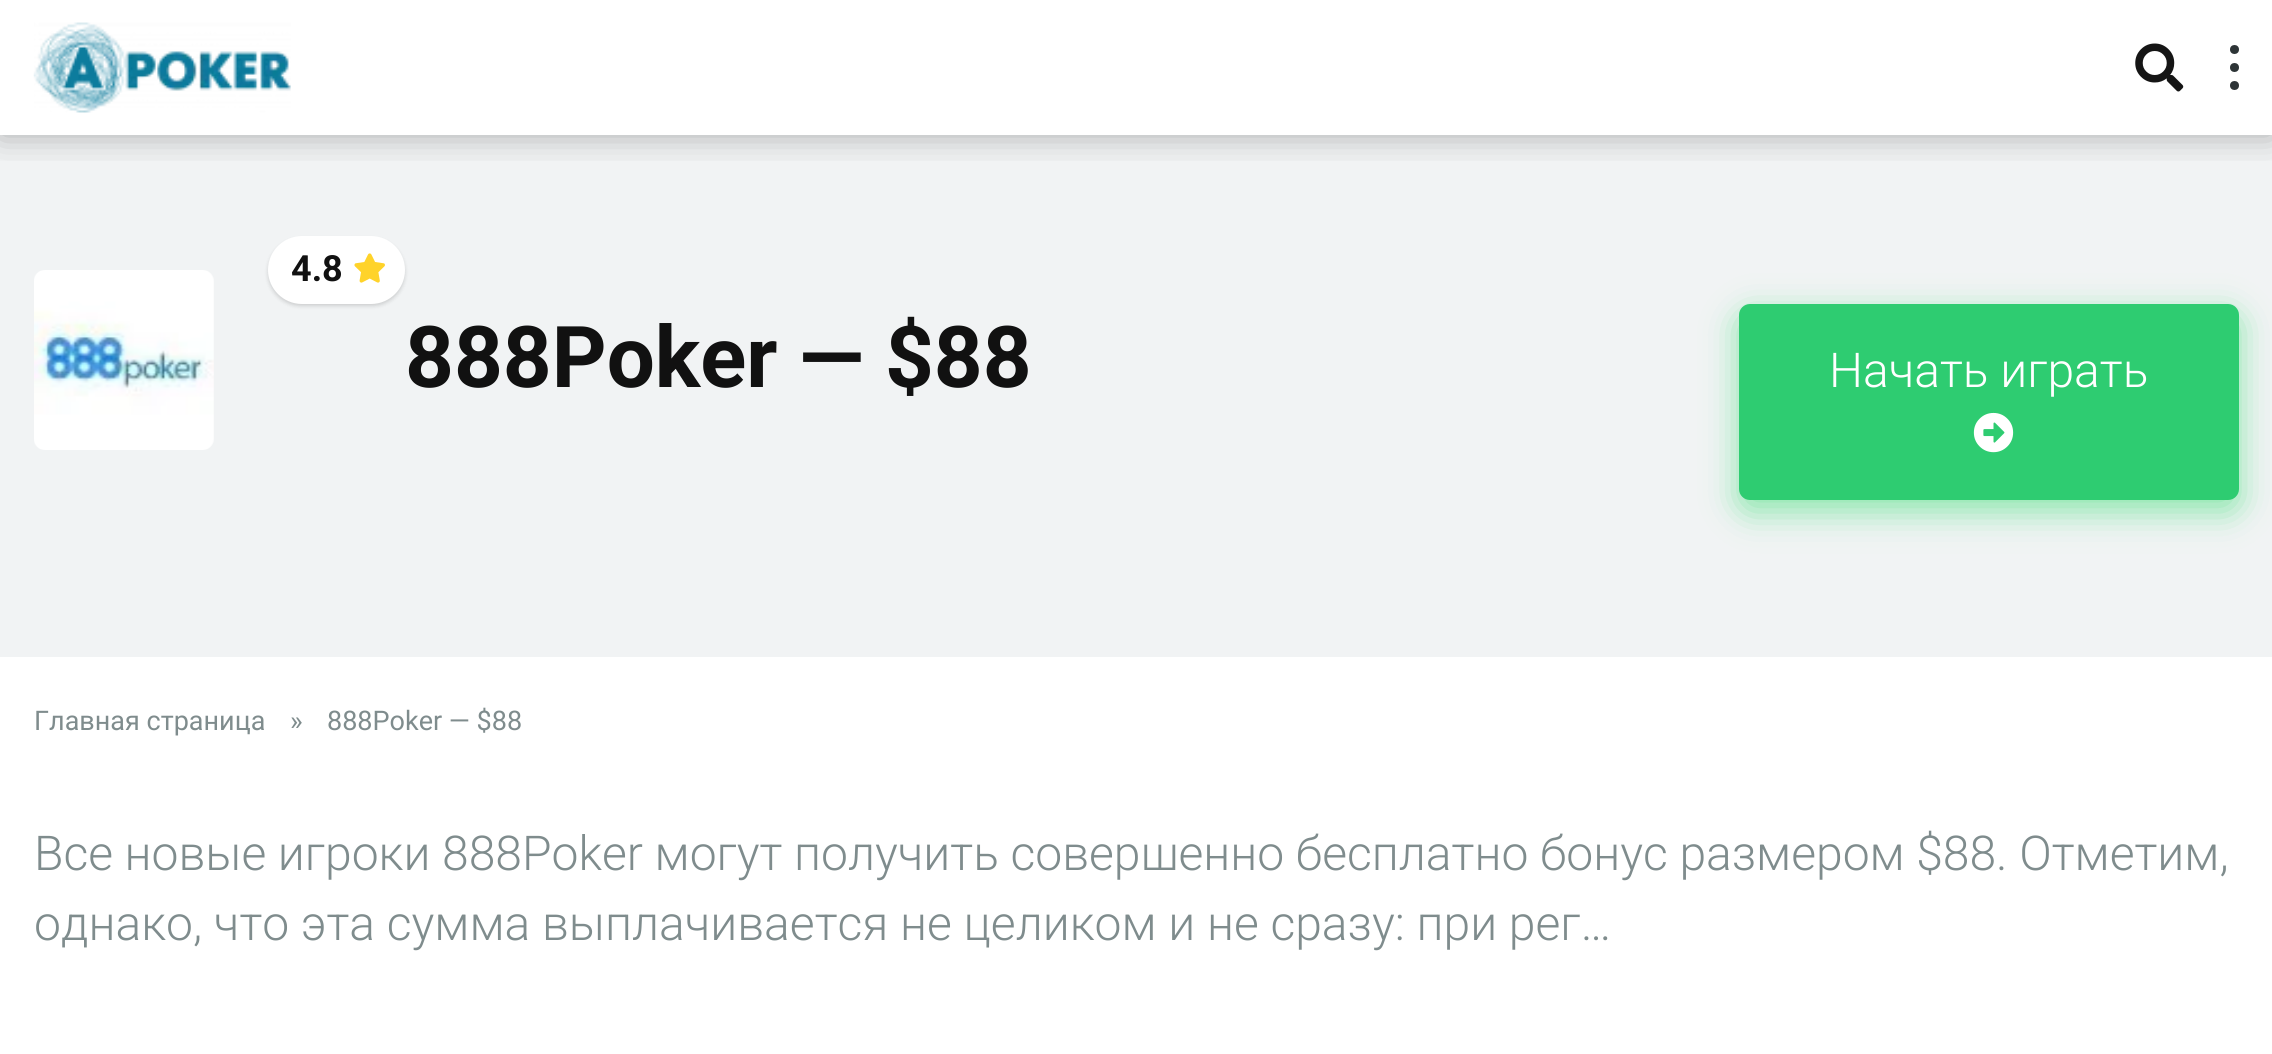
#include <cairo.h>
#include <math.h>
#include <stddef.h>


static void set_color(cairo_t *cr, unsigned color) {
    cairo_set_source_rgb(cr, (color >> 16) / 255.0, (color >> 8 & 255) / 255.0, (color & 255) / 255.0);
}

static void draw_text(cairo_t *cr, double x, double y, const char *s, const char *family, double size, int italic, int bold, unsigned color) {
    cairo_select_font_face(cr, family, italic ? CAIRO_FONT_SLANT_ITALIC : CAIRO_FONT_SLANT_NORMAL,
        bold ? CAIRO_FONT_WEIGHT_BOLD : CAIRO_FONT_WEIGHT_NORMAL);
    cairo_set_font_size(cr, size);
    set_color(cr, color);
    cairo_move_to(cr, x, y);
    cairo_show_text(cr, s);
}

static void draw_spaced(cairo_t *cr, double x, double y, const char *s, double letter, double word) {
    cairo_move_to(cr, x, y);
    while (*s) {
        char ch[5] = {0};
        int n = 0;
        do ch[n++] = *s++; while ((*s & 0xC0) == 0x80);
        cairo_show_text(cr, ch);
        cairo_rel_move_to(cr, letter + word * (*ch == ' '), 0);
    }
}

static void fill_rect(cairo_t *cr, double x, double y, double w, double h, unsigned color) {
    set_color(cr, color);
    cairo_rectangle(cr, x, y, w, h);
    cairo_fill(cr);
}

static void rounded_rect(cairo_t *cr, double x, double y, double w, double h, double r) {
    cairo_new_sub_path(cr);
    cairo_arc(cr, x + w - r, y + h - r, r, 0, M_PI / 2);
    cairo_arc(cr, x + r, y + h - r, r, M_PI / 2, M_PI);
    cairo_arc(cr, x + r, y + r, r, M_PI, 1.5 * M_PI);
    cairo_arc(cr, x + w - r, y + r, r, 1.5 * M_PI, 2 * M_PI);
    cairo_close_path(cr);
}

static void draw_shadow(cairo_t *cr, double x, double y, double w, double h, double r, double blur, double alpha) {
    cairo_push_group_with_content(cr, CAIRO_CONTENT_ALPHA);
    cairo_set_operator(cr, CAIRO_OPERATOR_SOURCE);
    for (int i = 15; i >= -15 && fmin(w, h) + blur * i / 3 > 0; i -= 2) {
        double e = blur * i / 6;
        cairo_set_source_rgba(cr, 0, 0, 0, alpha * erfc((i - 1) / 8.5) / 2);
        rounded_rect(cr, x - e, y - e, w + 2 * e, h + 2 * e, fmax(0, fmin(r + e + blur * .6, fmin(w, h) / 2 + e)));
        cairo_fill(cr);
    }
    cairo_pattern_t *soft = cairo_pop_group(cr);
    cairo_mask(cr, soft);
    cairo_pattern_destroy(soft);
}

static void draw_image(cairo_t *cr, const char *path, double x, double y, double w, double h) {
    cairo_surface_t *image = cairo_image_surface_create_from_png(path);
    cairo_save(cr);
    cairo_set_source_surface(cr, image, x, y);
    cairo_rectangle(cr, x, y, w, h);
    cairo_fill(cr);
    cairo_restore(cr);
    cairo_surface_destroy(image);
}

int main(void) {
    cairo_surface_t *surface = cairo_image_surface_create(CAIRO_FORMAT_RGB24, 2272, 1054);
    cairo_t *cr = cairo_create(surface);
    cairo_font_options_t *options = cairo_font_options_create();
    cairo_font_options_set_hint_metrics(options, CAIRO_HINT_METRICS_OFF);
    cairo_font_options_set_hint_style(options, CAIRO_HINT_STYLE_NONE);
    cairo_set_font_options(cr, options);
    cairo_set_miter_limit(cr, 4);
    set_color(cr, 0xFFFFFF);
    cairo_paint(cr);
    fill_rect(cr, 0, 135, 2272, 522, 0xF1F3F4);
    cairo_save(cr);
    cairo_rectangle(cr, 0, 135, 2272, 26);
    cairo_clip(cr);
    set_color(cr, 0x000000);
    draw_shadow(cr, 0, 0, 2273, 135, 0, 17, 0.3);
    cairo_restore(cr);
    draw_image(cr, "assets/img1.png", 33, 22, 258, 91);
    draw_image(cr, "assets/img2.png", 2135, 43, 49, 49);
    set_color(cr, 0x2D3436);
    cairo_arc(cr, 2234.5, 49.5, 4.5, 0, 2 * M_PI);
    cairo_fill(cr);
    cairo_arc(cr, 2234.5, 67.5, 4.5, 0, 2 * M_PI);
    cairo_fill(cr);
    cairo_arc(cr, 2234.5, 85.5, 4.5, 0, 2 * M_PI);
    cairo_fill(cr);
    draw_image(cr, "assets/img3.png", 34, 270, 180, 180);
    set_color(cr, 0x000000);
    draw_shadow(cr, 268, 239, 137, 67, 33.5, 2, 0.15);
    set_color(cr, 0xFFFFFF);
    rounded_rect(cr, 268, 236, 137, 68, 34);
    cairo_fill(cr);
    draw_text(cr, 291, 281, "4.8", "Roboto", 36, 0, 1, 0x111111);
    draw_image(cr, "assets/img4.png", 354, 253, 31, 30);
    draw_text(cr, 405, 387, "888Poker — $88", "Roboto", 85.25, 0, 1, 0x111111);
    set_color(cr, 0x2DDD6C);
    draw_shadow(cr, 1739, 315, 500, 196, 11, 17, 0.55);
    set_color(cr, 0x2ECC71);
    rounded_rect(cr, 1739, 304, 500, 196, 11);
    cairo_fill(cr);
    draw_text(cr, 1829, 387, "Начать играть", "Roboto Light", 48, 0, 0, 0xFFFFFF);
    draw_image(cr, "assets/img5.png", 1973, 412, 41, 41);
    draw_text(cr, 34, 730, "Главная страница", "Roboto", 27, 0, 0, 0x7F8C8D);
    draw_text(cr, 290, 730, "»", "Roboto", 27, 0, 0, 0x7F8C8D);
    draw_text(cr, 327, 730, "888Poker — $88", "Roboto", 27, 0, 0, 0x7F8C8D);
    cairo_select_font_face(cr, "Roboto Light", CAIRO_FONT_SLANT_NORMAL, CAIRO_FONT_WEIGHT_NORMAL);
    cairo_set_font_size(cr, 48);
    draw_spaced(cr, 34, 870, "Все новые игроки 888Poker могут получить совершенно бесплатно бонус размером $88. Отметим,", 0, -0.1);
    draw_text(cr, 34, 940, "однако, что эта сумма выплачивается не целиком и не сразу: при рег…", "Roboto Light", 48, 0, 0, 0x7F8C8D);
    cairo_surface_write_to_png(surface, "output.png");
    cairo_font_options_destroy(options);
    cairo_destroy(cr);
    cairo_surface_destroy(surface);
    return 0;
}
